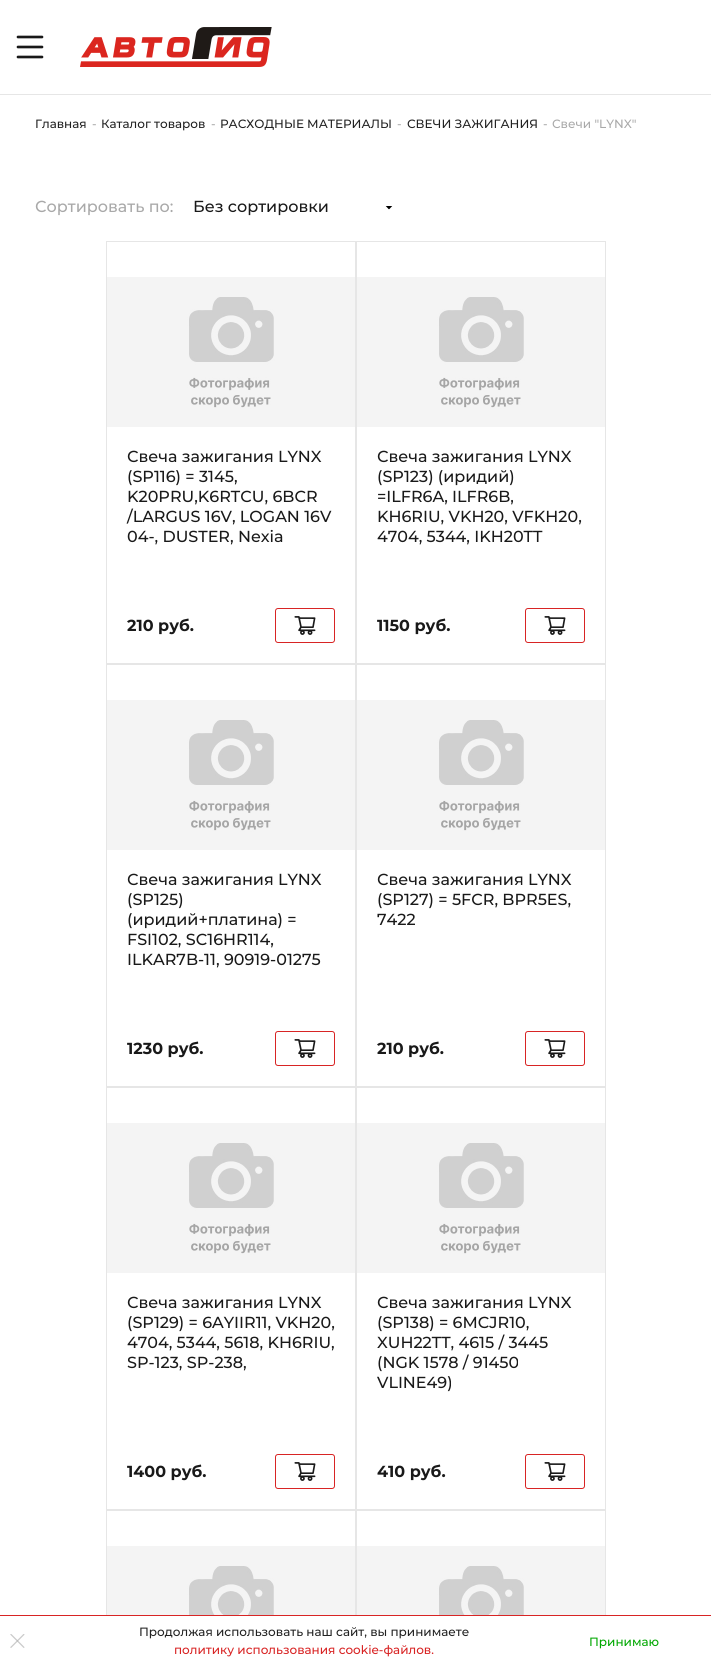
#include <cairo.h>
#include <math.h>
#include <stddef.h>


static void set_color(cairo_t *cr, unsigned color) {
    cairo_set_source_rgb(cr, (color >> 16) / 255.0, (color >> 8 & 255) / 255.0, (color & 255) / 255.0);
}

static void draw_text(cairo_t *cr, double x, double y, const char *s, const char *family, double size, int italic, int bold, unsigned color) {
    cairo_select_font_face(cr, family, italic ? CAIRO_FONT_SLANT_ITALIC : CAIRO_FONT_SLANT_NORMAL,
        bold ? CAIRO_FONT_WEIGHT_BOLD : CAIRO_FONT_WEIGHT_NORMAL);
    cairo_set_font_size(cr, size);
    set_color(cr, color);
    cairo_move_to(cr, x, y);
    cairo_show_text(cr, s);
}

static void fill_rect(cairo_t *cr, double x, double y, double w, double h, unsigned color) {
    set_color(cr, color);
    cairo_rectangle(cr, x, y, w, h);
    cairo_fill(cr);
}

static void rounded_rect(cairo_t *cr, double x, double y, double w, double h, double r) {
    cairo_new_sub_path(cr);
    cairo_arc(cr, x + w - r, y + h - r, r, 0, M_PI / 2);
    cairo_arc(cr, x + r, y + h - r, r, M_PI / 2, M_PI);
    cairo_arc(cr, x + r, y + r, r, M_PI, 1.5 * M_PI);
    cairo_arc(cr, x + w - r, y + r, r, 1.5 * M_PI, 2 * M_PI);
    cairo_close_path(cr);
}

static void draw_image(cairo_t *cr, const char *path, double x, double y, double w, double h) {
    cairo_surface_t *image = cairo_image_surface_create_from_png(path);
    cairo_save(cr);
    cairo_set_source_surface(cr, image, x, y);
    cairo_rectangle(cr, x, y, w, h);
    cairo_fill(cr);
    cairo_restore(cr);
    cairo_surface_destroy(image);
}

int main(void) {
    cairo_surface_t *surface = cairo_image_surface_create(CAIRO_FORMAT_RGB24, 711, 1666);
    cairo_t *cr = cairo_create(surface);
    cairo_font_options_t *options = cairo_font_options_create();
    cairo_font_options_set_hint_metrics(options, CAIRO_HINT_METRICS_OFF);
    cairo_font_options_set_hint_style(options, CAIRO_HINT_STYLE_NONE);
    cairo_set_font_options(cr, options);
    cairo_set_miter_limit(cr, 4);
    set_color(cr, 0xFFFFFF);
    cairo_paint(cr);
    fill_rect(cr, 0, 94, 711, 1, 0xE6E6E6);
    cairo_new_path(cr);
    cairo_move_to(cr, 18, 37);
    cairo_line_to(cr, 42, 37);
    cairo_move_to(cr, 18, 47);
    cairo_line_to(cr, 42, 47);
    cairo_move_to(cr, 18, 57);
    cairo_line_to(cr, 42, 57);
    set_color(cr, 0x191919);
    cairo_set_line_width(cr, 2.7);
    cairo_set_line_cap(cr, CAIRO_LINE_CAP_ROUND);
    cairo_stroke(cr);
    draw_image(cr, "assets/img1.png", 80, 27, 192, 40);
    draw_text(cr, 35, 128, "Главная", "Montserrat Medium", 12, 0, 0, 0x222222);
    draw_text(cr, 92, 128, "-", "Montserrat Medium", 12, 0, 0, 0xA9A9A9);
    draw_text(cr, 101, 128, "Каталог товаров", "Montserrat Medium", 12, 0, 0, 0x222222);
    draw_text(cr, 211, 128, "-", "Montserrat Medium", 12, 0, 0, 0xA9A9A9);
    draw_text(cr, 220, 128, "РАСХОДНЫЕ МАТЕРИАЛЫ", "Montserrat Medium", 12, 0, 0, 0x222222);
    draw_text(cr, 397, 128, "-", "Montserrat Medium", 12, 0, 0, 0xA9A9A9);
    draw_text(cr, 407, 128, "СВЕЧИ ЗАЖИГАНИЯ", "Montserrat Medium", 12, 0, 0, 0x222222);
    draw_text(cr, 543, 128, "-", "Montserrat Medium", 12, 0, 0, 0xA9A9A9);
    draw_text(cr, 552, 128, "Свечи \"LYNX\"", "Montserrat Medium", 12, 0, 0, 0xA9A9A9);
    draw_text(cr, 35, 212, "Сортировать по:", "Montserrat Medium", 16, 0, 0, 0xA9A9A9);
    draw_text(cr, 193, 212, "Без сортировки", "Montserrat Medium", 16, 0, 0, 0x191919);
    draw_image(cr, "assets/img2.png", 385, 206, 8, 4);
    cairo_rectangle(cr, 106.5, 241.5, 249, 422);
    set_color(cr, 0xE6E6E6);
    cairo_set_line_width(cr, 1);
    cairo_set_line_cap(cr, CAIRO_LINE_CAP_BUTT);
    cairo_stroke(cr);
    draw_image(cr, "assets/img3.png", 107, 277, 248, 150);
    draw_text(cr, 127, 462, "Свеча зажигания LYNX", "Montserrat Medium", 16, 0, 0, 0x191919);
    draw_text(cr, 127, 482, "(SP116) = 3145,", "Montserrat Medium", 16, 0, 0, 0x191919);
    draw_text(cr, 127, 502, "K20PRU,K6RTCU, 6BCR", "Montserrat Medium", 16, 0, 0, 0x191919);
    draw_text(cr, 127, 522, "/LARGUS 16V, LOGAN 16V", "Montserrat Medium", 16, 0, 0, 0x191919);
    draw_text(cr, 127, 542, "04-, DUSTER, Nexia", "Montserrat Medium", 16, 0, 0, 0x191919);
    draw_text(cr, 127, 631, "210 руб.", "Montserrat", 16, 0, 1, 0x191919);
    draw_image(cr, "assets/img4.png", 294, 616, 22, 19);
    rounded_rect(cr, 275.5, 608.5, 59, 34, 2.5);
    set_color(cr, 0xD82424);
    cairo_stroke(cr);
    cairo_rectangle(cr, 356.5, 241.5, 249, 422);
    set_color(cr, 0xE6E6E6);
    cairo_stroke(cr);
    draw_image(cr, "assets/img3.png", 357, 277, 248, 150);
    draw_text(cr, 377, 462, "Свеча зажигания LYNX", "Montserrat Medium", 16, 0, 0, 0x191919);
    draw_text(cr, 377, 482, "(SP123) (иридий)", "Montserrat Medium", 16, 0, 0, 0x191919);
    draw_text(cr, 377, 502, "=ILFR6A, ILFR6B,", "Montserrat Medium", 16, 0, 0, 0x191919);
    draw_text(cr, 377, 522, "KH6RIU, VKH20, VFKH20,", "Montserrat Medium", 16, 0, 0, 0x191919);
    draw_text(cr, 377, 542, "4704, 5344, IKH20TT", "Montserrat Medium", 16, 0, 0, 0x191919);
    draw_text(cr, 377, 631, "1150 руб.", "Montserrat", 16, 0, 1, 0x191919);
    draw_image(cr, "assets/img4.png", 544, 616, 22, 19);
    rounded_rect(cr, 525.5, 608.5, 59, 34, 2.5);
    set_color(cr, 0xD82424);
    cairo_stroke(cr);
    cairo_rectangle(cr, 106.5, 664.5, 249, 422);
    set_color(cr, 0xE6E6E6);
    cairo_stroke(cr);
    draw_image(cr, "assets/img3.png", 107, 700, 248, 150);
    draw_text(cr, 127, 885, "Свеча зажигания LYNX", "Montserrat Medium", 16, 0, 0, 0x191919);
    draw_text(cr, 127, 905, "(SP125)", "Montserrat Medium", 16, 0, 0, 0x191919);
    draw_text(cr, 127, 925, "(иридий+платина) =", "Montserrat Medium", 16, 0, 0, 0x191919);
    draw_text(cr, 127, 945, "FSI102, SC16HR114,", "Montserrat Medium", 16, 0, 0, 0x191919);
    draw_text(cr, 127, 965, "ILKAR7B-11, 90919-01275", "Montserrat Medium", 16, 0, 0, 0x191919);
    draw_text(cr, 127, 1054, "1230 руб.", "Montserrat", 16, 0, 1, 0x191919);
    draw_image(cr, "assets/img4.png", 294, 1039, 22, 19);
    rounded_rect(cr, 275.5, 1031.5, 59, 34, 2.5);
    set_color(cr, 0xD82424);
    cairo_stroke(cr);
    cairo_rectangle(cr, 356.5, 664.5, 249, 422);
    set_color(cr, 0xE6E6E6);
    cairo_stroke(cr);
    draw_image(cr, "assets/img3.png", 357, 700, 248, 150);
    draw_text(cr, 377, 885, "Свеча зажигания LYNX", "Montserrat Medium", 16, 0, 0, 0x191919);
    draw_text(cr, 377, 905, "(SP127) = 5FCR, BPR5ES,", "Montserrat Medium", 16, 0, 0, 0x191919);
    draw_text(cr, 377, 925, "7422", "Montserrat Medium", 16, 0, 0, 0x191919);
    draw_text(cr, 377, 1054, "210 руб.", "Montserrat", 16, 0, 1, 0x191919);
    draw_image(cr, "assets/img4.png", 544, 1039, 22, 19);
    rounded_rect(cr, 525.5, 1031.5, 59, 34, 2.5);
    set_color(cr, 0xD82424);
    cairo_stroke(cr);
    cairo_rectangle(cr, 106.5, 1087.5, 249, 422);
    set_color(cr, 0xE6E6E6);
    cairo_stroke(cr);
    draw_image(cr, "assets/img3.png", 107, 1123, 248, 150);
    draw_text(cr, 127, 1308, "Свеча зажигания LYNX", "Montserrat Medium", 16, 0, 0, 0x191919);
    draw_text(cr, 127, 1328, "(SP129) = 6AYIIR11, VKH20,", "Montserrat Medium", 16, 0, 0, 0x191919);
    draw_text(cr, 127, 1348, "4704, 5344, 5618, KH6RIU,", "Montserrat Medium", 16, 0, 0, 0x191919);
    draw_text(cr, 127, 1368, "SP-123, SP-238,", "Montserrat Medium", 16, 0, 0, 0x191919);
    draw_text(cr, 127, 1477, "1400 руб.", "Montserrat", 16, 0, 1, 0x191919);
    draw_image(cr, "assets/img4.png", 294, 1462, 22, 19);
    rounded_rect(cr, 275.5, 1454.5, 59, 34, 2.5);
    set_color(cr, 0xD82424);
    cairo_stroke(cr);
    cairo_rectangle(cr, 356.5, 1087.5, 249, 422);
    set_color(cr, 0xE6E6E6);
    cairo_stroke(cr);
    draw_image(cr, "assets/img3.png", 357, 1123, 248, 150);
    draw_text(cr, 377, 1308, "Свеча зажигания LYNX", "Montserrat Medium", 16, 0, 0, 0x191919);
    draw_text(cr, 377, 1328, "(SP138) = 6MCJR10,", "Montserrat Medium", 16, 0, 0, 0x191919);
    draw_text(cr, 377, 1348, "XUH22TT, 4615 / 3445", "Montserrat Medium", 16, 0, 0, 0x191919);
    draw_text(cr, 377, 1368, "(NGK 1578 / 91450", "Montserrat Medium", 16, 0, 0, 0x191919);
    draw_text(cr, 377, 1388, "VLINE49)", "Montserrat Medium", 16, 0, 0, 0x191919);
    draw_text(cr, 377, 1477, "410 руб.", "Montserrat", 16, 0, 1, 0x191919);
    draw_image(cr, "assets/img4.png", 544, 1462, 22, 19);
    rounded_rect(cr, 525.5, 1454.5, 59, 34, 2.5);
    set_color(cr, 0xD82424);
    cairo_stroke(cr);
    cairo_rectangle(cr, 106.5, 1510.5, 249, 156);
    set_color(cr, 0xE6E6E6);
    cairo_stroke(cr);
    draw_image(cr, "assets/img5.png", 107, 1546, 248, 69);
    cairo_rectangle(cr, 356.5, 1510.5, 249, 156);
    cairo_stroke(cr);
    draw_image(cr, "assets/img5.png", 357, 1546, 248, 69);
    fill_rect(cr, 106, 1616, 500, 50, 0xFFFFFF);
    fill_rect(cr, 0, 1615, 711, 1, 0xD82424);
    draw_image(cr, "assets/img6.png", 10, 1634, 15, 14);
    draw_text(cr, 139, 1636, "Продолжая использовать наш сайт, вы принимаете", "Montserrat Medium", 12, 0, 0, 0x222222);
    draw_text(cr, 174, 1654, "политику использования cookie-файлов.", "Montserrat Medium", 12, 0, 0, 0xD82424);
    draw_text(cr, 589, 1646, "Принимаю", "Montserrat Medium", 12, 0, 0, 0x00A700);
    cairo_surface_write_to_png(surface, "output.png");
    cairo_font_options_destroy(options);
    cairo_destroy(cr);
    cairo_surface_destroy(surface);
    return 0;
}
